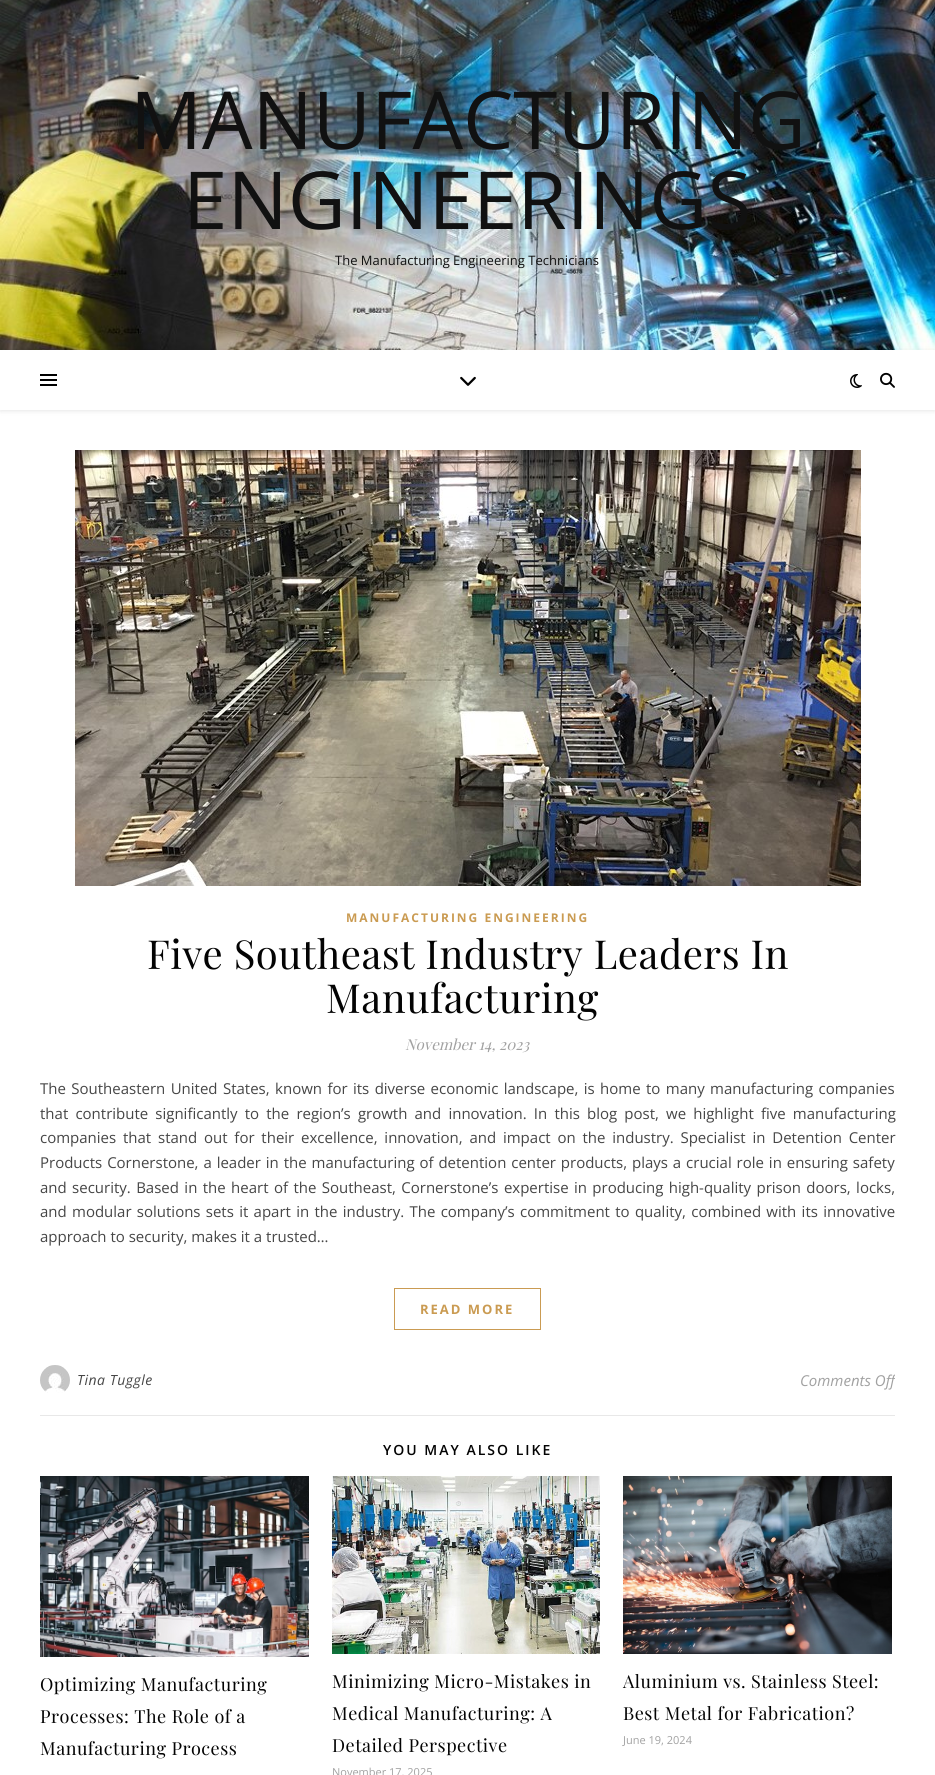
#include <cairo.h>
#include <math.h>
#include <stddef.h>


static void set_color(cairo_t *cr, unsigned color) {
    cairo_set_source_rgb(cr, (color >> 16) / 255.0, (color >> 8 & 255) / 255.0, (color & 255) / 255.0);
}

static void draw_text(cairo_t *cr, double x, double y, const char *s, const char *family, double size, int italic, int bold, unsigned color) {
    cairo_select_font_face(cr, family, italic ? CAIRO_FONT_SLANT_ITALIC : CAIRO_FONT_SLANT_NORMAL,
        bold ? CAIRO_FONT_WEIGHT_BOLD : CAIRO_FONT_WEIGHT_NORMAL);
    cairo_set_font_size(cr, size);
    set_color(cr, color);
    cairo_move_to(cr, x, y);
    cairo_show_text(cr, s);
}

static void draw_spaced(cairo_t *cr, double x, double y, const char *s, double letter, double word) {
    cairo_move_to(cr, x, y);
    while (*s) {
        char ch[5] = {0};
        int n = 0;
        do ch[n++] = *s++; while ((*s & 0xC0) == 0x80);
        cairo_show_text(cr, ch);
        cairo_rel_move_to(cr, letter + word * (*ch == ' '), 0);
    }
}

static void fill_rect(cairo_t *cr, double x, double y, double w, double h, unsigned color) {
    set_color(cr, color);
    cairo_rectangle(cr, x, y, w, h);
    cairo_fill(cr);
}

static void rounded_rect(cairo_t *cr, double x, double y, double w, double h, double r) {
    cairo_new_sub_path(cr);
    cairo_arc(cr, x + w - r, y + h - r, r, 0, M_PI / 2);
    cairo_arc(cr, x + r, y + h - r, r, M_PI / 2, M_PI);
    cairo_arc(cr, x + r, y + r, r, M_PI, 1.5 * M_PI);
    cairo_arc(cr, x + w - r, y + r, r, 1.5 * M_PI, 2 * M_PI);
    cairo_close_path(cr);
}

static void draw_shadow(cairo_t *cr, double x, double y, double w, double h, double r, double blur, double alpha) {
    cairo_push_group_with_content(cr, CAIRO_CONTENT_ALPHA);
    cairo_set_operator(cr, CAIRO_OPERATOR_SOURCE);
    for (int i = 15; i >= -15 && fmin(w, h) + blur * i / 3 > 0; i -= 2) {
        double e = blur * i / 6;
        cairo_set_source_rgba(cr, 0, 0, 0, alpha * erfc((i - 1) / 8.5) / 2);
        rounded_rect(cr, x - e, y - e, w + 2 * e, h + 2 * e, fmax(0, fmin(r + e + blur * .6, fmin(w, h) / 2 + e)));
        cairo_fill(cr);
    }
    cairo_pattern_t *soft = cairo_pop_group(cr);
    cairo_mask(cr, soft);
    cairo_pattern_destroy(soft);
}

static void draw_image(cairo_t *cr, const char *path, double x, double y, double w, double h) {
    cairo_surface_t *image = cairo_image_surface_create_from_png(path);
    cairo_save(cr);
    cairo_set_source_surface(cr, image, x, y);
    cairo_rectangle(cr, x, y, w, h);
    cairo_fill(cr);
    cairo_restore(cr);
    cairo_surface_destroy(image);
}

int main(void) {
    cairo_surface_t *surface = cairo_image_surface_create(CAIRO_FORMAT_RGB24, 935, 1775);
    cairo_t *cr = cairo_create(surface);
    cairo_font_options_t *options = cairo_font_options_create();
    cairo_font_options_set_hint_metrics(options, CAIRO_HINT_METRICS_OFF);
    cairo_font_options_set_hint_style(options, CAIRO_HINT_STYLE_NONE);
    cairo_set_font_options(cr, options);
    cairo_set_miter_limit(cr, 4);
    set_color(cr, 0xFFFFFF);
    cairo_paint(cr);
    draw_image(cr, "assets/img1.png", 0, 0, 935, 350);
    draw_text(cr, 130, 149, "MANUFACTURING", "Open Sans", 80, 0, 0, 0x111111);
    draw_text(cr, 183, 229, "ENGINEERINGS", "Open Sans", 80, 0, 0, 0x111111);
    draw_text(cr, 335, 265, "The Manufacturing Engineering Technicians", "Open Sans", 13, 0, 0, 0x111111);
    cairo_save(cr);
    cairo_set_fill_rule(cr, CAIRO_FILL_RULE_EVEN_ODD);
    cairo_new_path(cr);
    cairo_move_to(cr, 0, 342);
    cairo_line_to(cr, 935, 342);
    cairo_line_to(cr, 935, 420);
    cairo_line_to(cr, 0, 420);
    cairo_close_path(cr);
    cairo_move_to(cr, 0, 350);
    cairo_line_to(cr, 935, 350);
    cairo_line_to(cr, 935, 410);
    cairo_line_to(cr, 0, 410);
    cairo_close_path(cr);
    cairo_clip(cr);
    set_color(cr, 0x000000);
    draw_shadow(cr, 0, 351, 935, 60, 0, 2.5, 0.1);
    cairo_restore(cr);
    fill_rect(cr, 40, 374, 17, 2, 0x000000);
    fill_rect(cr, 40, 379, 17, 2, 0x000000);
    fill_rect(cr, 40, 384, 17, 2, 0x000000);
    draw_image(cr, "assets/img2.png", 460, 376, 16, 10);
    draw_image(cr, "assets/img3.png", 850, 374, 12, 14);
    draw_image(cr, "assets/img4.png", 880, 372, 15, 16);
    draw_image(cr, "assets/img5.png", 75, 450, 786, 436);
    cairo_select_font_face(cr, "Open Sans", CAIRO_FONT_SLANT_NORMAL, CAIRO_FONT_WEIGHT_BOLD);
    cairo_set_font_size(cr, 12);
    set_color(cr, 0xCA9B52);
    draw_spaced(cr, 346, 922, "MANUFACTURING ENGINEERING", 2, 0);
    cairo_select_font_face(cr, "Playfair Display", CAIRO_FONT_SLANT_NORMAL, CAIRO_FONT_WEIGHT_NORMAL);
    cairo_set_font_size(cr, 40);
    set_color(cr, 0x030303);
    draw_spaced(cr, 147, 969, "Five Southeast Industry Leaders In", 0.5, 0);
    draw_spaced(cr, 326, 1013, "Manufacturing", 0.5, 0);
    draw_text(cr, 405, 1050, "November 14, 2023", "Playfair Display", 15, 1, 0, 0xA1A1A1);
    cairo_select_font_face(cr, "Open Sans", CAIRO_FONT_SLANT_NORMAL, CAIRO_FONT_WEIGHT_NORMAL);
    set_color(cr, 0x464646);
    draw_spaced(cr, 40, 1094, "The Southeastern United States, known for its diverse economic landscape, is home to many manufacturing companies", 0, 1.5);
    draw_spaced(cr, 40, 1119, "that contribute significantly to the region’s growth and innovation. In this blog post, we highlight five manufacturing", 0, 3.25);
    draw_spaced(cr, 40, 1143, "companies that stand out for their excellence, innovation, and impact on the industry. Specialist in Detention Center", 0, 2.9);
    draw_spaced(cr, 40, 1168, "Products Cornerstone, a leader in the manufacturing of detention center products, plays a crucial role in ensuring safety", 0, 1);
    draw_spaced(cr, 40, 1193, "and security. Based in the heart of the Southeast, Cornerstone’s expertise in producing high-quality prison doors, locks,", 0, 1.5);
    draw_spaced(cr, 40, 1217, "and modular solutions sets it apart in the industry. The company’s commitment to quality, combined with its innovative", 0, 1.4);
    draw_text(cr, 40, 1242, "approach to security, makes it a trusted…", "Open Sans", 15, 0, 0, 0x464646);
    cairo_rectangle(cr, 394.5, 1288.5, 146, 41);
    set_color(cr, 0xCA9B52);
    cairo_set_line_width(cr, 1);
    cairo_stroke(cr);
    cairo_select_font_face(cr, "Open Sans", CAIRO_FONT_SLANT_NORMAL, CAIRO_FONT_WEIGHT_BOLD);
    cairo_set_font_size(cr, 13);
    draw_spaced(cr, 420, 1314, "READ MORE", 2, 0);
    fill_rect(cr, 40, 1415, 855, 1, 0xE8E8E8);
    draw_image(cr, "assets/img6.png", 40, 1365, 30, 28);
    cairo_select_font_face(cr, "Open Sans", CAIRO_FONT_SLANT_ITALIC, CAIRO_FONT_WEIGHT_NORMAL);
    cairo_set_font_size(cr, 14);
    set_color(cr, 0x464646);
    draw_spaced(cr, 77, 1385, "Tina Tuggle", 0.5, 0);
    cairo_save(cr);
    cairo_rectangle(cr, 40, 1345, 855, 70);
    cairo_clip(cr);
    draw_text(cr, 800, 1386, "Comments Off", "Open Sans", 15, 1, 0, 0xA1A1A1);
    cairo_restore(cr);
    cairo_select_font_face(cr, "Open Sans SemiBold", CAIRO_FONT_SLANT_NORMAL, CAIRO_FONT_WEIGHT_NORMAL);
    set_color(cr, 0x030303);
    draw_spaced(cr, 383, 1455, "YOU MAY ALSO LIKE", 2, 0);
    draw_image(cr, "assets/img7.png", 40, 1476, 269, 181);
    cairo_select_font_face(cr, "Playfair Display", CAIRO_FONT_SLANT_NORMAL, CAIRO_FONT_WEIGHT_NORMAL);
    cairo_set_font_size(cr, 18);
    draw_spaced(cr, 40, 1691, "Optimizing Manufacturing", 0.5, 0);
    draw_spaced(cr, 40, 1723, "Processes: The Role of a", 0.5, 0);
    draw_spaced(cr, 40, 1755, "Manufacturing Process", 0.5, 0);
    draw_image(cr, "assets/img8.png", 332, 1476, 268, 178);
    draw_spaced(cr, 332, 1688, "Minimizing Micro-Mistakes in", 0.5, 0);
    draw_spaced(cr, 332, 1720, "Medical Manufacturing: A", 0.5, 0);
    draw_spaced(cr, 332, 1752, "Detailed Perspective", 0.5, 0);
    draw_text(cr, 332, 1776, "November 17, 2025", "Open Sans", 11, 0, 0, 0xA1A1A1);
    draw_image(cr, "assets/img9.png", 623, 1476, 269, 178);
    cairo_select_font_face(cr, "Playfair Display", CAIRO_FONT_SLANT_NORMAL, CAIRO_FONT_WEIGHT_NORMAL);
    cairo_set_font_size(cr, 18);
    set_color(cr, 0x030303);
    draw_spaced(cr, 623, 1688, "Aluminium vs. Stainless Steel:", 0.5, 0);
    draw_spaced(cr, 623, 1720, "Best Metal for Fabrication?", 0.5, 0);
    draw_text(cr, 623, 1744, "June 19, 2024", "Open Sans", 11, 0, 0, 0xA1A1A1);
    cairo_surface_write_to_png(surface, "output.png");
    cairo_font_options_destroy(options);
    cairo_destroy(cr);
    cairo_surface_destroy(surface);
    return 0;
}
